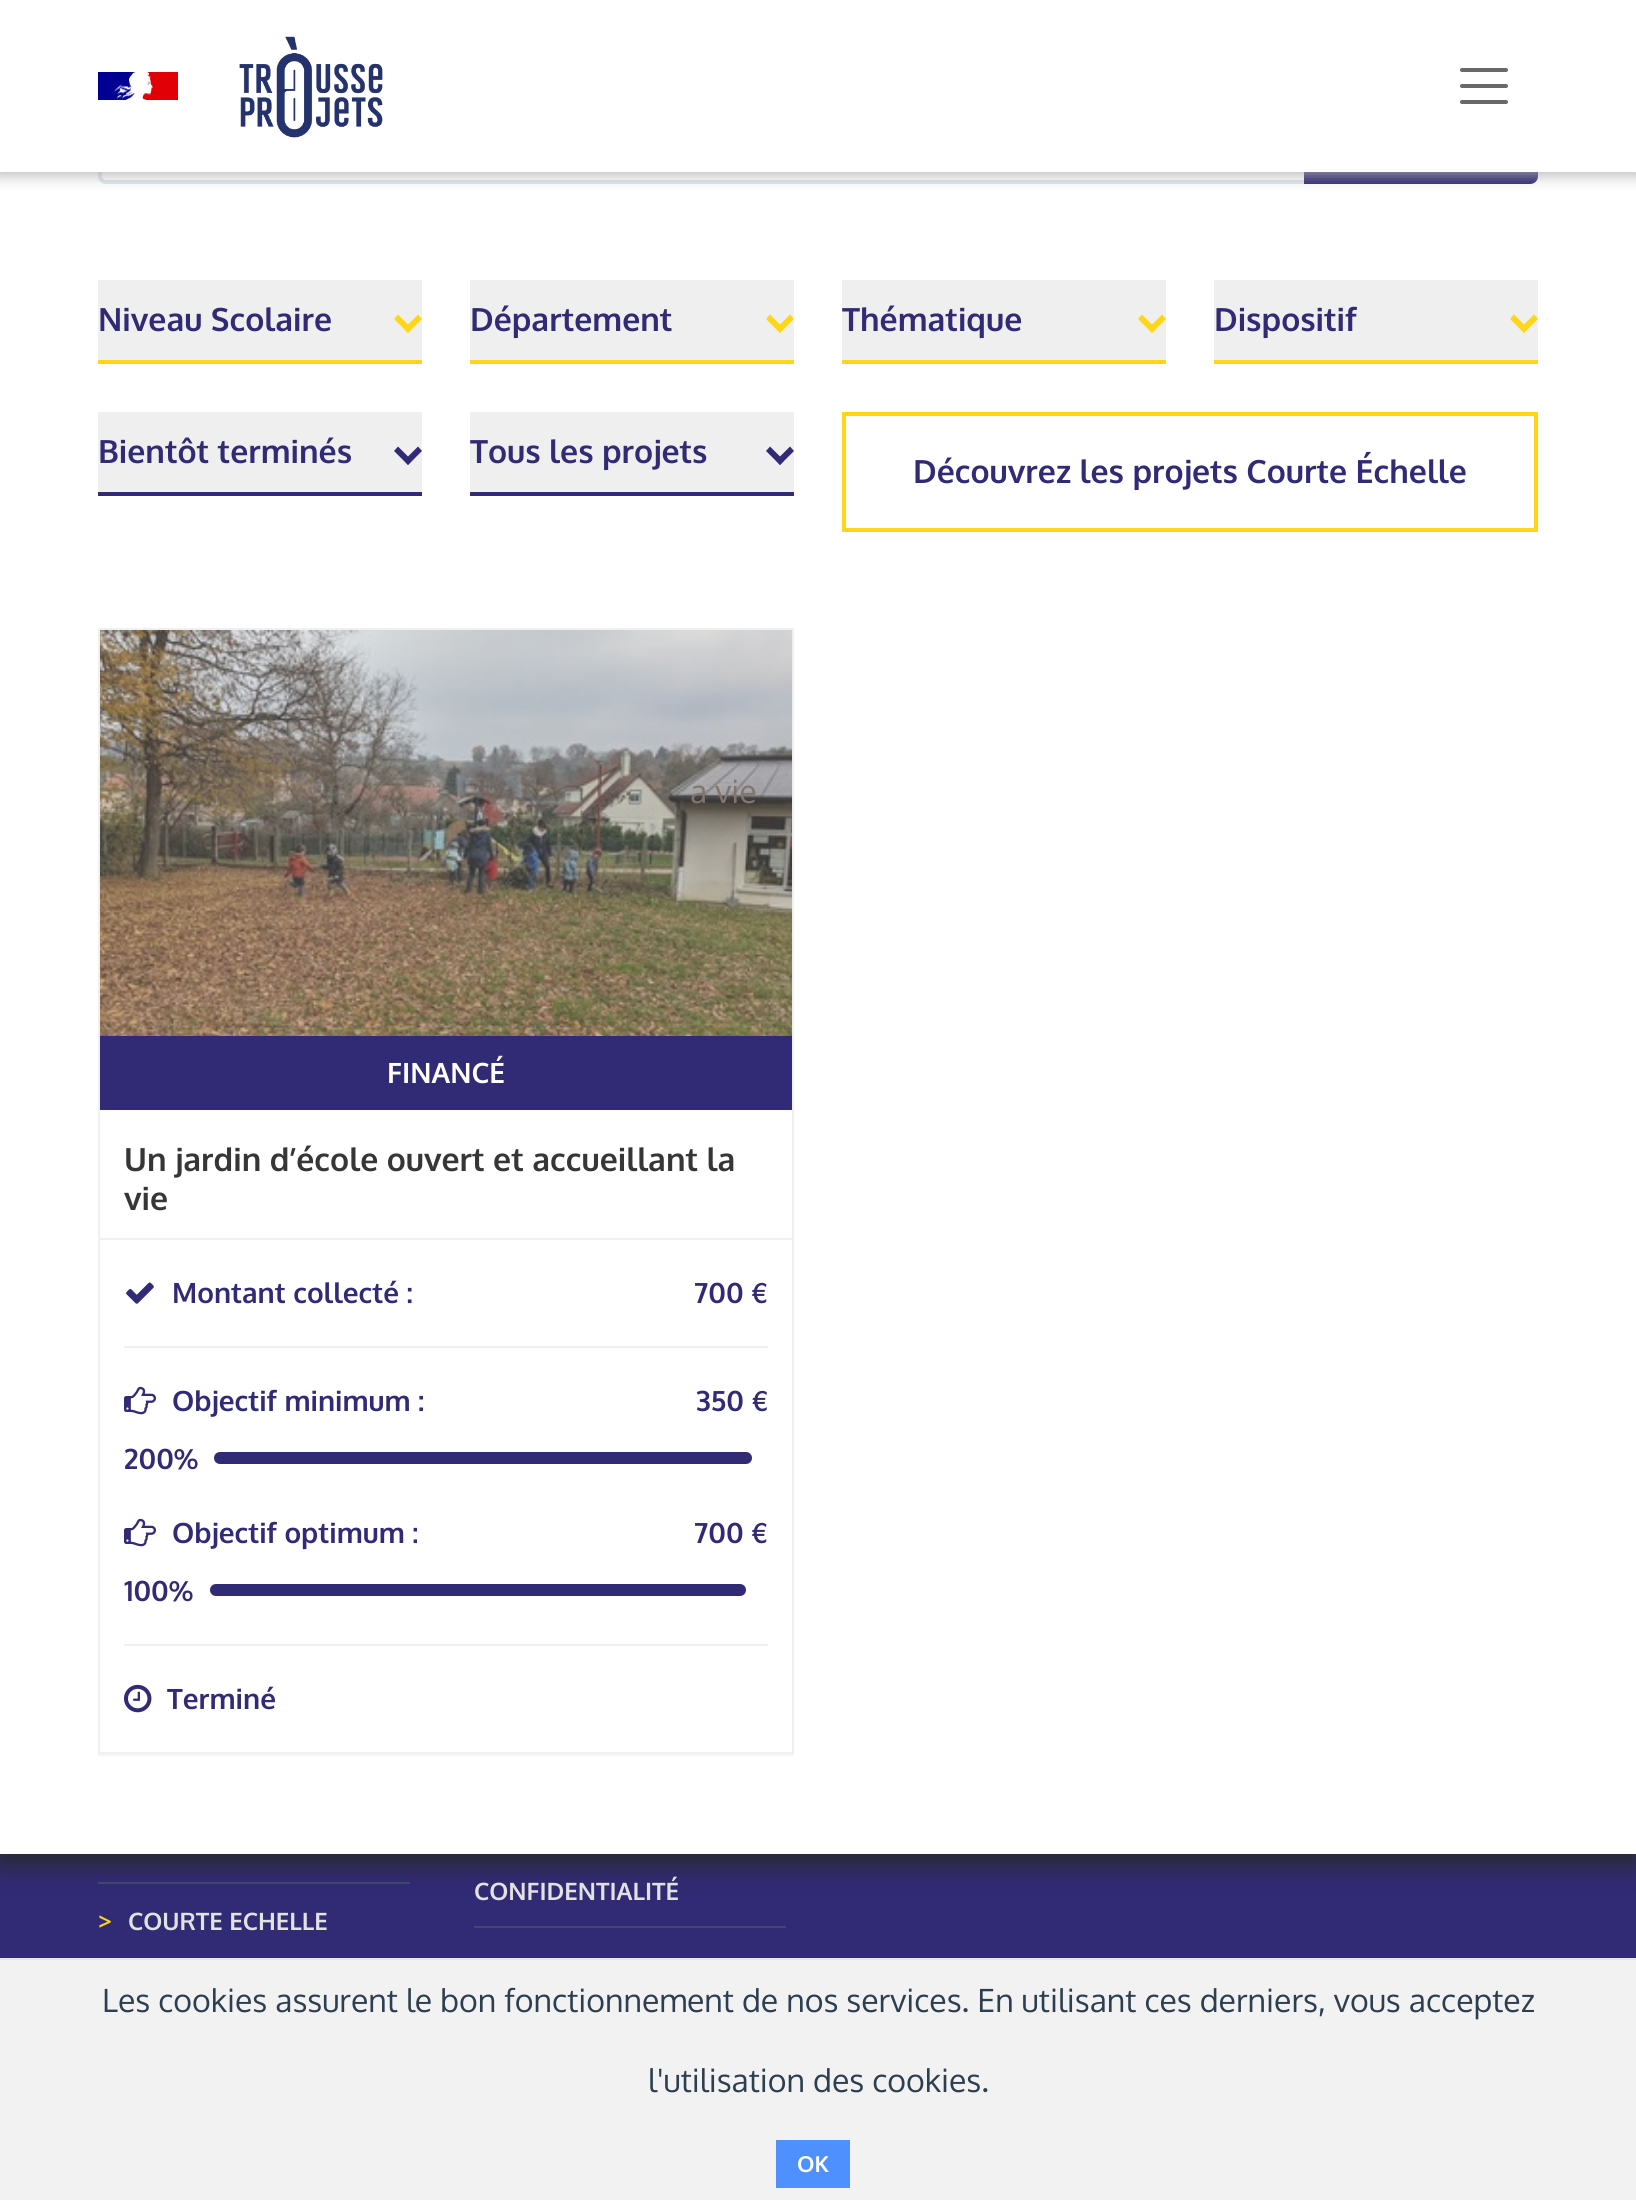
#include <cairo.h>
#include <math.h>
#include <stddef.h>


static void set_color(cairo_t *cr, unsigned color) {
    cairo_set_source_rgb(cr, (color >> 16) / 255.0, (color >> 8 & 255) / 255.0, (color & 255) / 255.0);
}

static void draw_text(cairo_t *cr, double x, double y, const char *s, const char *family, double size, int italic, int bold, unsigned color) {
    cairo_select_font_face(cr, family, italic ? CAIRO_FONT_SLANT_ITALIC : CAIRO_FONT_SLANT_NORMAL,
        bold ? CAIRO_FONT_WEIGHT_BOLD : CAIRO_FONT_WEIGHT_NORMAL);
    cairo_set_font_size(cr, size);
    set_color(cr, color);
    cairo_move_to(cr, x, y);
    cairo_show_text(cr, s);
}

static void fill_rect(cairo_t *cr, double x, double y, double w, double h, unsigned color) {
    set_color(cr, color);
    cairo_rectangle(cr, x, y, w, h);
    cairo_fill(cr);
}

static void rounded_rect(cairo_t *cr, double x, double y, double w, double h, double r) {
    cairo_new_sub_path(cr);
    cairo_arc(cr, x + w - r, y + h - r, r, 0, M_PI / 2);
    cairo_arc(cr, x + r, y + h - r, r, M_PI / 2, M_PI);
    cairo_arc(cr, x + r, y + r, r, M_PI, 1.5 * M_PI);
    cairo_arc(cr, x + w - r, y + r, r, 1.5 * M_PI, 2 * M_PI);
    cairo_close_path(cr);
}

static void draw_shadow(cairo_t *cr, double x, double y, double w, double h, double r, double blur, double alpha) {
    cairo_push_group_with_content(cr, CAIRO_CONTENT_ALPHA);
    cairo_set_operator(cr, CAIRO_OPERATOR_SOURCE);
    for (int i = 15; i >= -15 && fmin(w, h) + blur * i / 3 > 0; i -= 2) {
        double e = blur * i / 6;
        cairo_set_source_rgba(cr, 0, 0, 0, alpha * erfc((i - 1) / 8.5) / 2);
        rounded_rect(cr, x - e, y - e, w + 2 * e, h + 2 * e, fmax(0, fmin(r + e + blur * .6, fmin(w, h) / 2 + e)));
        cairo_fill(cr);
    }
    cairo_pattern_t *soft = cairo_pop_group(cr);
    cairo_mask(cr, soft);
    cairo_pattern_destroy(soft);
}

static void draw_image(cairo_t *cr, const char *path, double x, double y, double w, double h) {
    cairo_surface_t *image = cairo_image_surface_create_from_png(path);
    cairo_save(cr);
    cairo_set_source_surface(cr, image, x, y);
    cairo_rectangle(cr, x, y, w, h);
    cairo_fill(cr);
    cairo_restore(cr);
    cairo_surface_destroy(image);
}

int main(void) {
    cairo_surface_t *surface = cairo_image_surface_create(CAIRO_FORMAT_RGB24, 1636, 2200);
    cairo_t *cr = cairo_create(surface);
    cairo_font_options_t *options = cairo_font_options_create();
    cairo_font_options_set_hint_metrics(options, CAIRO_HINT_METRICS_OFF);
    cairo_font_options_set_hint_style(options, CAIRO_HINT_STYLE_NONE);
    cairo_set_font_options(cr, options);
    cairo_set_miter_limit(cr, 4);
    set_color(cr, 0x312A74);
    cairo_paint(cr);
    fill_rect(cr, 98, 1882, 312, 2, 0x3E4871);
    set_color(cr, 0x292929);
    draw_shadow(cr, 0, -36, 1636, 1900, 0, 12, 1);
    fill_rect(cr, 0, 172, 1636, 1682, 0xFFFFFF);
    rounded_rect(cr, 100, 90, 1210, 92, 6);
    set_color(cr, 0xDCE4EC);
    cairo_set_line_width(cr, 4);
    cairo_stroke(cr);
    set_color(cr, 0x312A74);
    cairo_new_path(cr);
    cairo_move_to(cr, 1306, 90);
    cairo_line_to(cr, 1530, 90);
    cairo_curve_to(cr, 1533.5, 90, 1536, 92.5, 1536, 96);
    cairo_line_to(cr, 1536, 176);
    cairo_curve_to(cr, 1536, 179.5, 1533.5, 182, 1530, 182);
    cairo_line_to(cr, 1306, 182);
    cairo_close_path(cr);
    cairo_fill_preserve(cr);
    cairo_stroke(cr);
    set_color(cr, 0xADADAD);
    draw_shadow(cr, -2, -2, 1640, 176, 0, 8, 1);
    fill_rect(cr, 0, 0, 1636, 172, 0xFFFFFF);
    draw_image(cr, "assets/img1.png", 98, 72, 80, 28);
    draw_image(cr, "assets/img2.png", 239, 36, 144, 102);
    cairo_new_path(cr);
    cairo_move_to(cr, 1462, 70);
    cairo_line_to(cr, 1506, 70);
    cairo_move_to(cr, 1462, 86);
    cairo_line_to(cr, 1506, 86);
    cairo_move_to(cr, 1462, 102);
    cairo_line_to(cr, 1506, 102);
    set_color(cr, 0x686869);
    cairo_set_line_cap(cr, CAIRO_LINE_CAP_ROUND);
    cairo_stroke(cr);
    fill_rect(cr, 98, 280, 324, 80, 0xEFEFEF);
    fill_rect(cr, 98, 360, 324, 4, 0xFFD618);
    draw_text(cr, 98, 331, "Niveau Scolaire", "Oxygen", 32, 0, 1, 0x312A74);
    set_color(cr, 0xFFD618);
    cairo_new_path(cr);
    cairo_move_to(cr, 418, 314.5);
    cairo_line_to(cr, 422, 319);
    cairo_line_to(cr, 408, 333);
    cairo_line_to(cr, 404, 328.5);
    cairo_close_path(cr);
    cairo_fill(cr);
    cairo_new_path(cr);
    cairo_move_to(cr, 398, 314.5);
    cairo_line_to(cr, 412, 328.5);
    cairo_line_to(cr, 408, 333);
    cairo_line_to(cr, 394, 319);
    cairo_close_path(cr);
    cairo_fill(cr);
    fill_rect(cr, 470, 280, 324, 80, 0xEFEFEF);
    fill_rect(cr, 470, 360, 324, 4, 0xFFD618);
    draw_text(cr, 470, 331, "Département", "Oxygen", 32, 0, 1, 0x312A74);
    set_color(cr, 0xFFD618);
    cairo_new_path(cr);
    cairo_move_to(cr, 790, 314.5);
    cairo_line_to(cr, 794, 319);
    cairo_line_to(cr, 780, 333);
    cairo_line_to(cr, 776, 328.5);
    cairo_close_path(cr);
    cairo_fill(cr);
    cairo_new_path(cr);
    cairo_move_to(cr, 770, 314.5);
    cairo_line_to(cr, 784, 328.5);
    cairo_line_to(cr, 780, 333);
    cairo_line_to(cr, 766, 319);
    cairo_close_path(cr);
    cairo_fill(cr);
    fill_rect(cr, 842, 280, 324, 80, 0xEFEFEF);
    fill_rect(cr, 842, 360, 324, 4, 0xFFD618);
    draw_text(cr, 842, 331, "Thématique", "Oxygen", 32, 0, 1, 0x312A74);
    set_color(cr, 0xFFD618);
    cairo_new_path(cr);
    cairo_move_to(cr, 1162, 314.5);
    cairo_line_to(cr, 1166, 319);
    cairo_line_to(cr, 1152, 333);
    cairo_line_to(cr, 1148, 328.5);
    cairo_close_path(cr);
    cairo_fill(cr);
    cairo_new_path(cr);
    cairo_move_to(cr, 1142, 314.5);
    cairo_line_to(cr, 1156, 328.5);
    cairo_line_to(cr, 1152, 333);
    cairo_line_to(cr, 1138, 319);
    cairo_close_path(cr);
    cairo_fill(cr);
    fill_rect(cr, 1214, 280, 324, 80, 0xEFEFEF);
    fill_rect(cr, 1214, 360, 324, 4, 0xFFD618);
    draw_text(cr, 1214, 331, "Dispositif", "Oxygen", 32, 0, 1, 0x312A74);
    set_color(cr, 0xFFD618);
    cairo_new_path(cr);
    cairo_move_to(cr, 1534, 314.5);
    cairo_line_to(cr, 1538, 319);
    cairo_line_to(cr, 1524, 333);
    cairo_line_to(cr, 1520, 328.5);
    cairo_close_path(cr);
    cairo_fill(cr);
    cairo_new_path(cr);
    cairo_move_to(cr, 1514, 314.5);
    cairo_line_to(cr, 1528, 328.5);
    cairo_line_to(cr, 1524, 333);
    cairo_line_to(cr, 1510, 319);
    cairo_close_path(cr);
    cairo_fill(cr);
    fill_rect(cr, 98, 412, 324, 80, 0xEFEFEF);
    fill_rect(cr, 98, 492, 324, 4, 0x312A74);
    draw_text(cr, 98, 463, "Bientôt terminés", "Oxygen", 32, 0, 1, 0x312A74);
    cairo_new_path(cr);
    cairo_move_to(cr, 418, 446.5);
    cairo_line_to(cr, 422, 451);
    cairo_line_to(cr, 408, 465);
    cairo_line_to(cr, 404, 460.5);
    cairo_close_path(cr);
    cairo_fill(cr);
    cairo_new_path(cr);
    cairo_move_to(cr, 398, 446.5);
    cairo_line_to(cr, 412, 460.5);
    cairo_line_to(cr, 408, 465);
    cairo_line_to(cr, 394, 451);
    cairo_close_path(cr);
    cairo_fill(cr);
    fill_rect(cr, 470, 412, 324, 80, 0xEFEFEF);
    fill_rect(cr, 470, 492, 324, 4, 0x312A74);
    draw_text(cr, 470, 463, "Tous les projets", "Oxygen", 32, 0, 1, 0x312A74);
    cairo_new_path(cr);
    cairo_move_to(cr, 790, 446.5);
    cairo_line_to(cr, 794, 451);
    cairo_line_to(cr, 780, 465);
    cairo_line_to(cr, 776, 460.5);
    cairo_close_path(cr);
    cairo_fill(cr);
    cairo_new_path(cr);
    cairo_move_to(cr, 770, 446.5);
    cairo_line_to(cr, 784, 460.5);
    cairo_line_to(cr, 780, 465);
    cairo_line_to(cr, 766, 451);
    cairo_close_path(cr);
    cairo_fill(cr);
    cairo_rectangle(cr, 844, 414, 692, 116);
    set_color(cr, 0xFFD618);
    cairo_set_line_cap(cr, CAIRO_LINE_CAP_BUTT);
    cairo_stroke(cr);
    draw_text(cr, 913, 483, "Découvrez les projets Courte Échelle", "Oxygen", 32, 0, 1, 0x312A74);
    cairo_save(cr);
    cairo_rectangle(cr, 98, 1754, 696, 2);
    cairo_clip(cr);
    set_color(cr, 0x000000);
    draw_shadow(cr, 98, 630, 696, 1126, 0, 1, 0.05);
    cairo_restore(cr);
    cairo_rectangle(cr, 99, 629, 694, 1124);
    set_color(cr, 0xF0F0F0);
    cairo_set_line_width(cr, 2);
    cairo_stroke(cr);
    draw_image(cr, "assets/img3.png", 100, 630, 692, 406);
    draw_text(cr, 690, 803, "a vie", "Oxygen", 32, 0, 0, 0x80766D);
    fill_rect(cr, 100, 1036, 692, 74, 0x312A74);
    draw_text(cr, 387, 1083, "FINANCÉ", "Oxygen", 28, 0, 1, 0xFFFFFF);
    draw_text(cr, 124, 1171, "Un jardin d’école ouvert et accueillant la", "Oxygen", 32, 0, 1, 0x363637);
    draw_text(cr, 124, 1210, "vie", "Oxygen", 32, 0, 1, 0x363637);
    fill_rect(cr, 100, 1238, 692, 2, 0xF0F0F0);
    draw_image(cr, "assets/img4.png", 126, 1282, 28, 22);
    draw_text(cr, 172, 1303, "Montant collecté :", "Oxygen", 28, 0, 1, 0x312A74);
    draw_text(cr, 694, 1303, "700 €", "Oxygen", 28, 0, 1, 0x312A74);
    fill_rect(cr, 124, 1346, 644, 2, 0xF0F0F0);
    draw_image(cr, "assets/img5.png", 124, 1386, 32, 29);
    draw_text(cr, 172, 1411, "Objectif minimum :", "Oxygen", 28, 0, 1, 0x312A74);
    draw_text(cr, 696, 1411, "350 €", "Oxygen", 28, 0, 1, 0x312A74);
    draw_text(cr, 124, 1469, "200%", "Oxygen", 28, 0, 1, 0x312A74);
    rounded_rect(cr, 214, 1452, 538, 12, 6);
    cairo_fill(cr);
    draw_image(cr, "assets/img5.png", 124, 1518, 32, 29);
    draw_text(cr, 172, 1543, "Objectif optimum :", "Oxygen", 28, 0, 1, 0x312A74);
    draw_text(cr, 694, 1543, "700 €", "Oxygen", 28, 0, 1, 0x312A74);
    draw_text(cr, 124, 1601, "100%", "Oxygen", 28, 0, 1, 0x312A74);
    rounded_rect(cr, 210, 1584, 536, 12, 6);
    cairo_fill(cr);
    fill_rect(cr, 124, 1644, 644, 2, 0xF0F0F0);
    draw_image(cr, "assets/img6.png", 124, 1684, 28, 29);
    draw_text(cr, 167, 1709, "Terminé", "Oxygen", 28, 0, 1, 0x312A74);
    fill_rect(cr, 474, 1926, 312, 2, 0x3E4871);
    draw_text(cr, 474, 1900, "CONFIDENTIALITÉ", "Oxygen", 24, 0, 1, 0xE2E2E2);
    draw_text(cr, 98, 1930, ">", "Oxygen", 24, 0, 1, 0xFFD618);
    draw_text(cr, 128, 1930, "COURTE ECHELLE", "Oxygen", 24, 0, 1, 0xE2E2E2);
    fill_rect(cr, 0, 1960, 1636, 240, 0xF2F2F2);
    fill_rect(cr, 0, 1958, 1636, 2, 0xE4E4E4);
    draw_text(cr, 102, 2012, "Les cookies assurent le bon fonctionnement de nos services. En utilisant ces derniers, vous acceptez", "Oxygen", 32, 0, 0, 0x2C3E50);
    draw_text(cr, 648, 2092, "l'utilisation des cookies.", "Oxygen", 32, 0, 0, 0x2C3E50);
    fill_rect(cr, 776, 2140, 74, 48, 0x4D90FE);
    draw_text(cr, 797, 2172, "OK", "Oxygen", 22, 0, 1, 0xFFFFFF);
    cairo_surface_write_to_png(surface, "output.png");
    cairo_font_options_destroy(options);
    cairo_destroy(cr);
    cairo_surface_destroy(surface);
    return 0;
}
